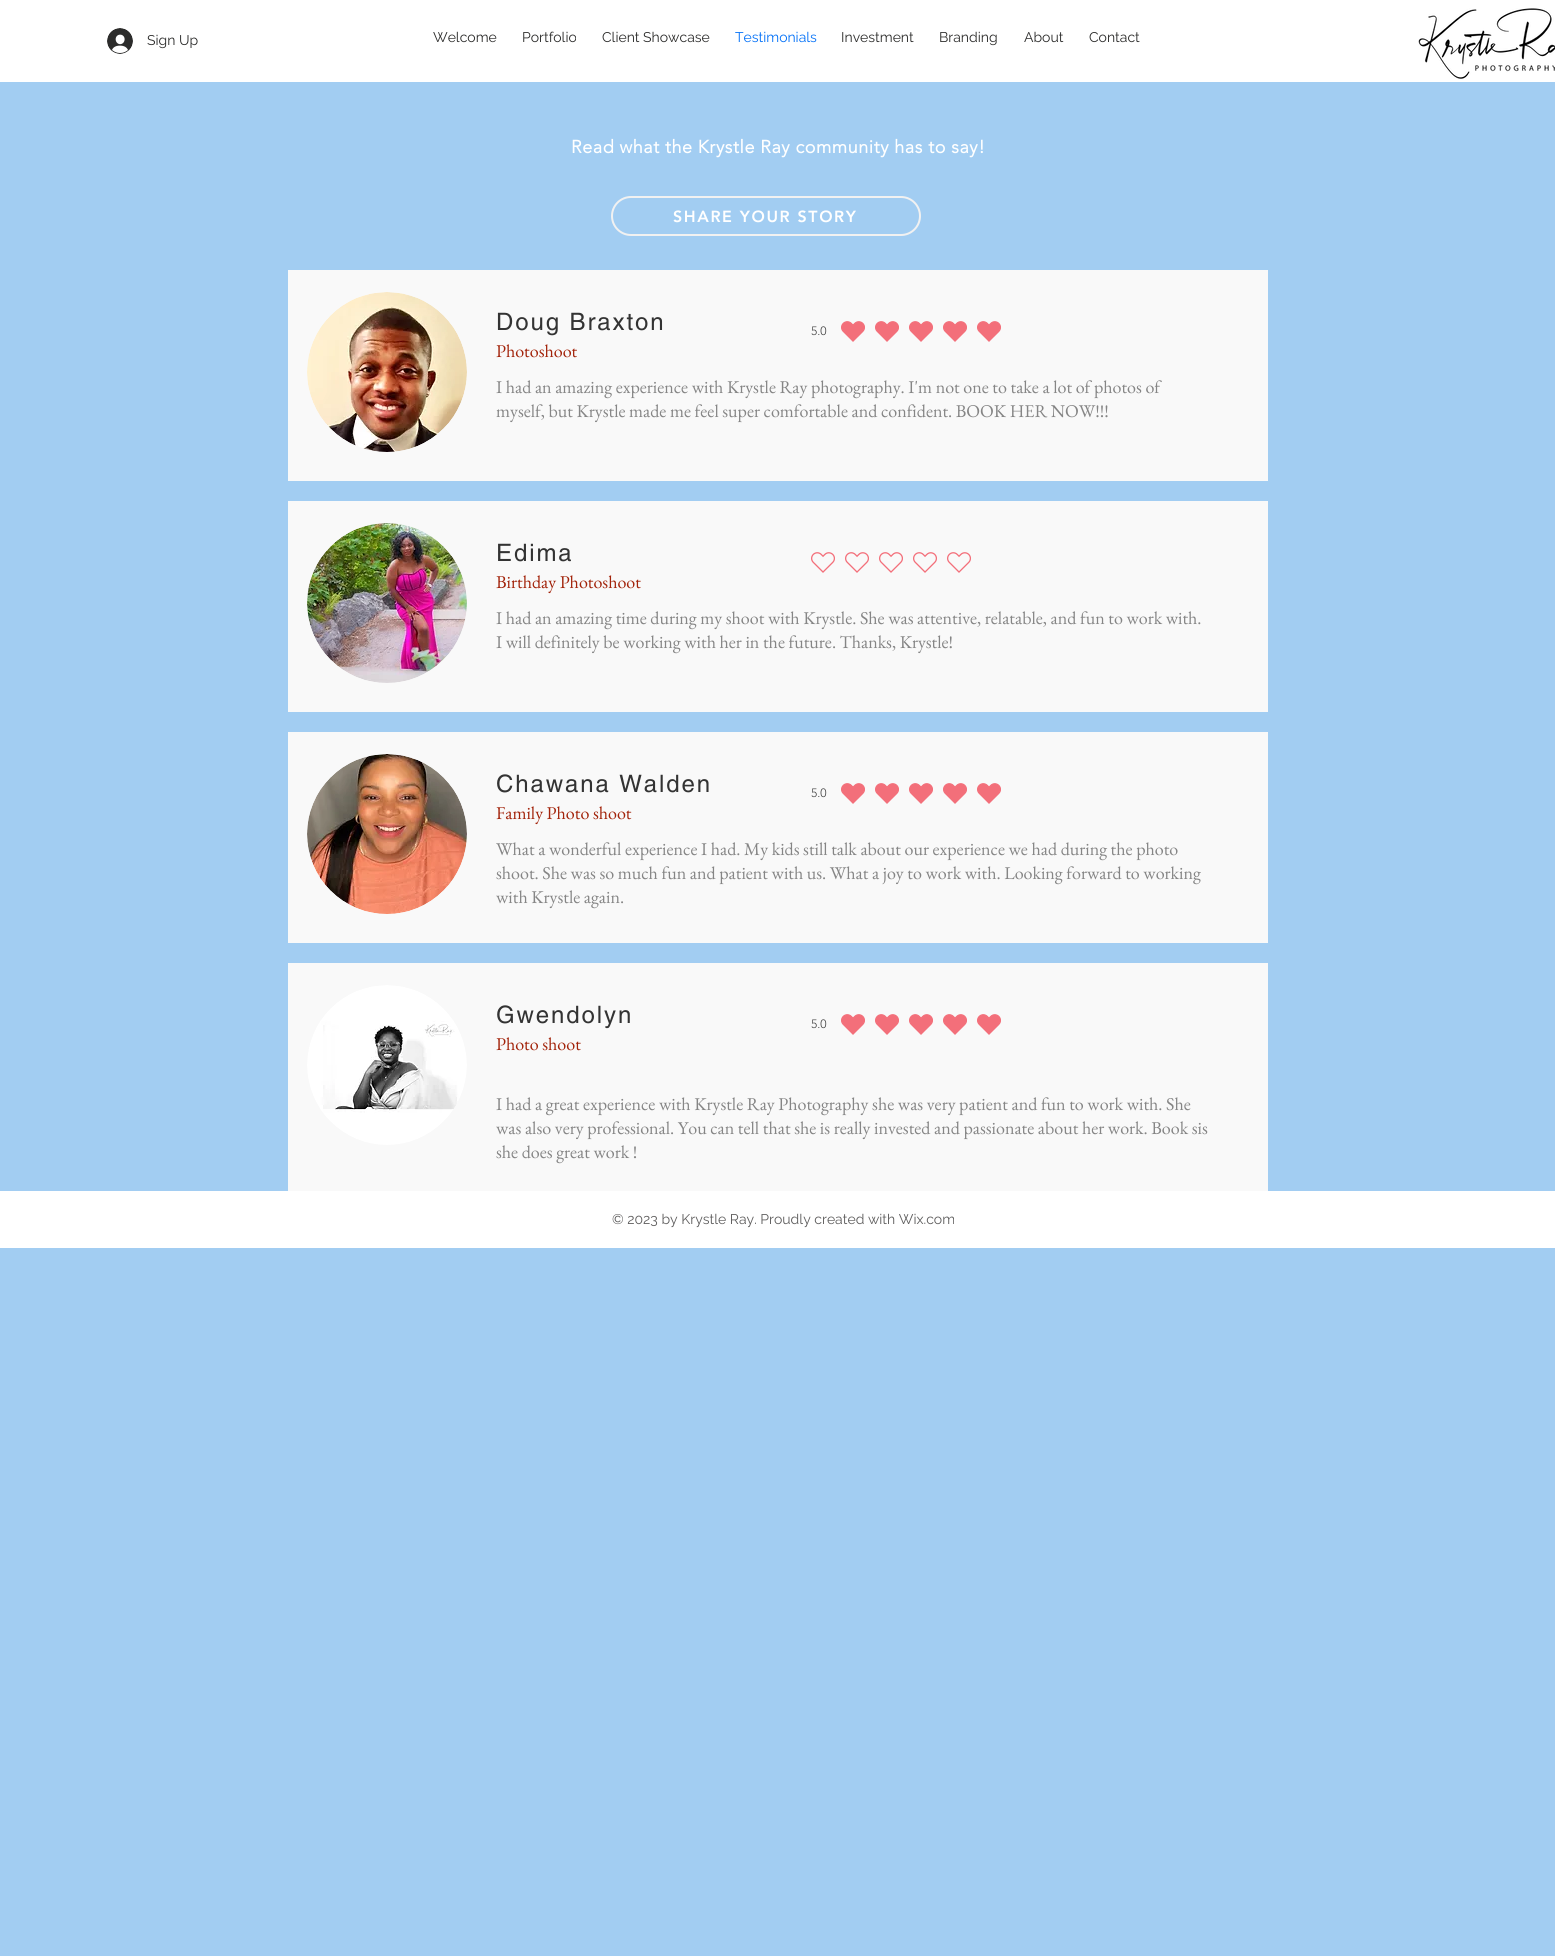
#include <cairo.h>
#include <math.h>
#include <stddef.h>


static void set_color(cairo_t *cr, unsigned color) {
    cairo_set_source_rgb(cr, (color >> 16) / 255.0, (color >> 8 & 255) / 255.0, (color & 255) / 255.0);
}

static void draw_text(cairo_t *cr, double x, double y, const char *s, const char *family, double size, int italic, int bold, unsigned color) {
    cairo_select_font_face(cr, family, italic ? CAIRO_FONT_SLANT_ITALIC : CAIRO_FONT_SLANT_NORMAL,
        bold ? CAIRO_FONT_WEIGHT_BOLD : CAIRO_FONT_WEIGHT_NORMAL);
    cairo_set_font_size(cr, size);
    set_color(cr, color);
    cairo_move_to(cr, x, y);
    cairo_show_text(cr, s);
}

static void draw_spaced(cairo_t *cr, double x, double y, const char *s, double letter, double word) {
    cairo_move_to(cr, x, y);
    while (*s) {
        char ch[5] = {0};
        int n = 0;
        do ch[n++] = *s++; while ((*s & 0xC0) == 0x80);
        cairo_show_text(cr, ch);
        cairo_rel_move_to(cr, letter + word * (*ch == ' '), 0);
    }
}

static void fill_rect(cairo_t *cr, double x, double y, double w, double h, unsigned color) {
    set_color(cr, color);
    cairo_rectangle(cr, x, y, w, h);
    cairo_fill(cr);
}

static void rounded_rect(cairo_t *cr, double x, double y, double w, double h, double r) {
    cairo_new_sub_path(cr);
    cairo_arc(cr, x + w - r, y + h - r, r, 0, M_PI / 2);
    cairo_arc(cr, x + r, y + h - r, r, M_PI / 2, M_PI);
    cairo_arc(cr, x + r, y + r, r, M_PI, 1.5 * M_PI);
    cairo_arc(cr, x + w - r, y + r, r, 1.5 * M_PI, 2 * M_PI);
    cairo_close_path(cr);
}

static void draw_image(cairo_t *cr, const char *path, double x, double y, double w, double h) {
    cairo_surface_t *image = cairo_image_surface_create_from_png(path);
    cairo_save(cr);
    cairo_set_source_surface(cr, image, x, y);
    cairo_rectangle(cr, x, y, w, h);
    cairo_fill(cr);
    cairo_restore(cr);
    cairo_surface_destroy(image);
}

int main(void) {
    cairo_surface_t *surface = cairo_image_surface_create(CAIRO_FORMAT_RGB24, 1555, 1956);
    cairo_t *cr = cairo_create(surface);
    cairo_font_options_t *options = cairo_font_options_create();
    cairo_font_options_set_hint_metrics(options, CAIRO_HINT_METRICS_OFF);
    cairo_font_options_set_hint_style(options, CAIRO_HINT_STYLE_NONE);
    cairo_set_font_options(cr, options);
    cairo_set_miter_limit(cr, 4);
    set_color(cr, 0xA2CDF2);
    cairo_paint(cr);
    fill_rect(cr, 0, 0, 1555, 82, 0xFFFFFF);
    draw_image(cr, "assets/img1.png", 1418, 8, 137, 71);
    draw_image(cr, "assets/img2.png", 107, 28, 26, 26);
    draw_text(cr, 147, 45, "Sign Up", "Raleway", 14, 0, 0, 0x2C2C2B);
    draw_text(cr, 433, 42, "Welcome", "Raleway", 14, 0, 0, 0x2C2C2B);
    draw_text(cr, 522, 42, "Portfolio", "Raleway", 14, 0, 0, 0x2C2C2B);
    draw_text(cr, 602, 42, "Client Showcase", "Raleway", 14, 0, 0, 0x2C2C2B);
    draw_text(cr, 735, 42, "Testimonials", "Raleway", 14, 0, 0, 0x0270F7);
    draw_text(cr, 841, 42, "Investment", "Raleway", 14, 0, 0, 0x2C2C2B);
    draw_text(cr, 939, 42, "Branding", "Raleway", 14, 0, 0, 0x2C2C2B);
    draw_text(cr, 1024, 42, "About", "Raleway", 14, 0, 0, 0x2C2C2B);
    draw_text(cr, 1089, 42, "Contact", "Raleway", 14, 0, 0, 0x2C2C2B);
    cairo_select_font_face(cr, "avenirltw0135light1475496", CAIRO_FONT_SLANT_NORMAL, CAIRO_FONT_WEIGHT_BOLD);
    cairo_set_font_size(cr, 18);
    set_color(cr, 0xFFFFFF);
    draw_spaced(cr, 571, 153, "Read what the Krystle Ray community has to say!", 0.55, 0);
    rounded_rect(cr, 612, 197, 308, 38, 19);
    set_color(cr, 0xF1F1F1);
    cairo_stroke(cr);
    cairo_select_font_face(cr, "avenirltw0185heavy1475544 Black", CAIRO_FONT_SLANT_NORMAL, CAIRO_FONT_WEIGHT_NORMAL);
    cairo_set_font_size(cr, 16);
    set_color(cr, 0xFFFFFF);
    draw_spaced(cr, 673, 222, "SHARE YOUR STORY", 1.6, 0);
    fill_rect(cr, 288, 270, 980, 211, 0xF9F9F9);
    draw_image(cr, "assets/img3.png", 307, 292, 160, 160);
    cairo_select_font_face(cr, "helvetica", CAIRO_FONT_SLANT_NORMAL, CAIRO_FONT_WEIGHT_NORMAL);
    cairo_set_font_size(cr, 24);
    set_color(cr, 0x333333);
    draw_spaced(cr, 496, 330, "Doug Braxton", 1.9, 0);
    draw_text(cr, 811, 335, "5.0", "avenirltw0135light1475496 Light", 12, 0, 0, 0x414141);
    draw_image(cr, "assets/img4.png", 841, 321, 24, 21);
    draw_image(cr, "assets/img4.png", 875, 321, 24, 21);
    draw_image(cr, "assets/img4.png", 909, 321, 24, 21);
    draw_image(cr, "assets/img4.png", 943, 321, 24, 21);
    draw_image(cr, "assets/img4.png", 977, 321, 24, 21);
    draw_text(cr, 496, 357, "Photoshoot", "EB Garamond", 18, 0, 0, 0xA2230A);
    draw_text(cr, 496, 393, "I had an amazing experience with Krystle Ray photography. I'm not one to take a lot of photos of", "EB Garamond", 18, 0, 0, 0x858585);
    draw_text(cr, 496, 417, "myself, but Krystle made me feel super comfortable and confident. BOOK HER NOW!!!", "EB Garamond", 18, 0, 0, 0x858585);
    fill_rect(cr, 288, 501, 980, 211, 0xF9F9F9);
    draw_image(cr, "assets/img5.png", 307, 523, 160, 160);
    cairo_select_font_face(cr, "helvetica", CAIRO_FONT_SLANT_NORMAL, CAIRO_FONT_WEIGHT_NORMAL);
    cairo_set_font_size(cr, 24);
    set_color(cr, 0x333333);
    draw_spaced(cr, 496, 561, "Edima", 1.9, 0);
    draw_image(cr, "assets/img6.png", 811, 552, 24, 21);
    draw_image(cr, "assets/img6.png", 845, 552, 24, 21);
    draw_image(cr, "assets/img6.png", 879, 552, 24, 21);
    draw_image(cr, "assets/img6.png", 913, 552, 24, 21);
    draw_image(cr, "assets/img6.png", 947, 552, 24, 21);
    draw_text(cr, 496, 588, "Birthday Photoshoot", "EB Garamond", 18, 0, 0, 0xA2230A);
    draw_text(cr, 496, 624, "I had an amazing time during my shoot with Krystle. She was attentive, relatable, and fun to work with.", "EB Garamond", 18, 0, 0, 0x858585);
    draw_text(cr, 496, 648, "I will definitely be working with her in the future. Thanks, Krystle!", "EB Garamond", 18, 0, 0, 0x858585);
    fill_rect(cr, 288, 732, 980, 211, 0xF9F9F9);
    draw_image(cr, "assets/img7.png", 307, 754, 160, 160);
    cairo_select_font_face(cr, "helvetica", CAIRO_FONT_SLANT_NORMAL, CAIRO_FONT_WEIGHT_NORMAL);
    cairo_set_font_size(cr, 24);
    set_color(cr, 0x333333);
    draw_spaced(cr, 496, 792, "Chawana Walden", 1.9, 0);
    draw_text(cr, 811, 797, "5.0", "avenirltw0135light1475496 Light", 12, 0, 0, 0x414141);
    draw_image(cr, "assets/img4.png", 841, 783, 24, 21);
    draw_image(cr, "assets/img4.png", 875, 783, 24, 21);
    draw_image(cr, "assets/img4.png", 909, 783, 24, 21);
    draw_image(cr, "assets/img4.png", 943, 783, 24, 21);
    draw_image(cr, "assets/img4.png", 977, 783, 24, 21);
    draw_text(cr, 496, 819, "Family Photo shoot", "EB Garamond", 18, 0, 0, 0xA2230A);
    draw_text(cr, 496, 855, "What a wonderful experience I had. My kids still talk about our experience we had during the photo", "EB Garamond", 18, 0, 0, 0x858585);
    draw_text(cr, 496, 879, "shoot. She was so much fun and patient with us. What a joy to work with. Looking forward to working", "EB Garamond", 18, 0, 0, 0x858585);
    draw_text(cr, 496, 903, "with Krystle again.", "EB Garamond", 18, 0, 0, 0x858585);
    fill_rect(cr, 288, 963, 980, 228, 0xF9F9F9);
    draw_image(cr, "assets/img8.png", 307, 985, 160, 160);
    cairo_select_font_face(cr, "helvetica", CAIRO_FONT_SLANT_NORMAL, CAIRO_FONT_WEIGHT_NORMAL);
    cairo_set_font_size(cr, 24);
    set_color(cr, 0x333333);
    draw_spaced(cr, 496, 1023, "Gwendolyn", 1.9, 0);
    draw_text(cr, 811, 1028, "5.0", "avenirltw0135light1475496 Light", 12, 0, 0, 0x414141);
    draw_image(cr, "assets/img4.png", 841, 1014, 24, 21);
    draw_image(cr, "assets/img4.png", 875, 1014, 24, 21);
    draw_image(cr, "assets/img4.png", 909, 1014, 24, 21);
    draw_image(cr, "assets/img4.png", 943, 1014, 24, 21);
    draw_image(cr, "assets/img4.png", 977, 1014, 24, 21);
    draw_text(cr, 496, 1050, "Photo shoot", "EB Garamond", 18, 0, 0, 0xA2230A);
    draw_text(cr, 496, 1110, "I had a great experience with Krystle Ray Photography she was very patient and fun to work with. She", "EB Garamond", 18, 0, 0, 0x858585);
    draw_text(cr, 496, 1134, "was also very professional. You can tell that she is really invested and passionate about her work. Book sis", "EB Garamond", 18, 0, 0, 0x858585);
    draw_text(cr, 496, 1158, "she does great work !", "EB Garamond", 18, 0, 0, 0x858585);
    fill_rect(cr, 0, 1191, 1555, 57, 0xFFFFFF);
    draw_text(cr, 612, 1224, "© 2023 by Krystle Ray. Proudly created with Wix.com", "Raleway", 14, 0, 0, 0x5E5D5D);
    cairo_surface_write_to_png(surface, "output.png");
    cairo_font_options_destroy(options);
    cairo_destroy(cr);
    cairo_surface_destroy(surface);
    return 0;
}
